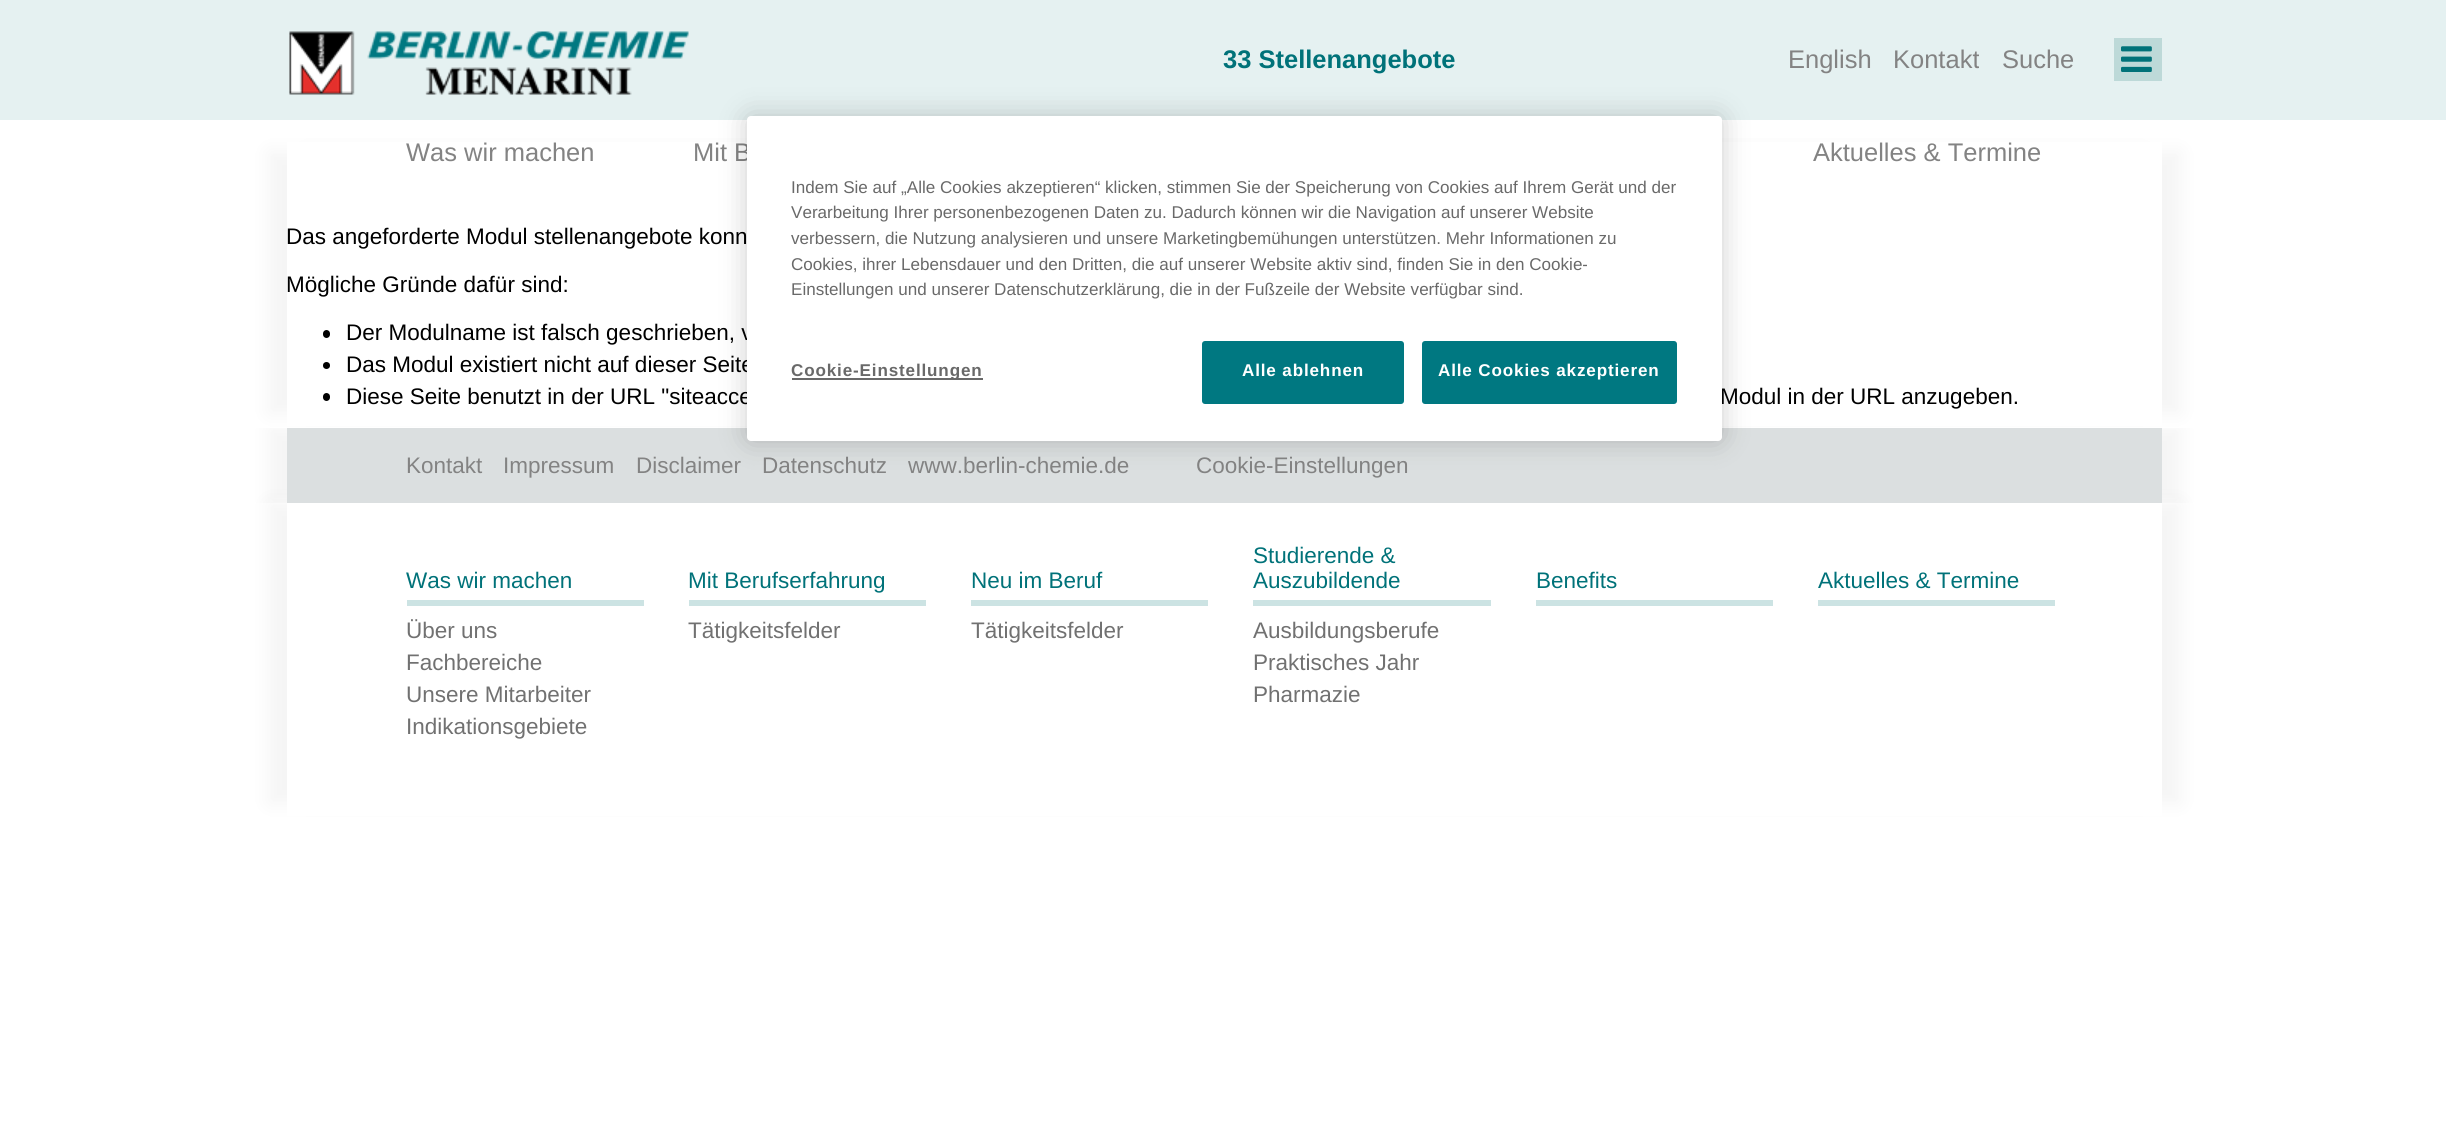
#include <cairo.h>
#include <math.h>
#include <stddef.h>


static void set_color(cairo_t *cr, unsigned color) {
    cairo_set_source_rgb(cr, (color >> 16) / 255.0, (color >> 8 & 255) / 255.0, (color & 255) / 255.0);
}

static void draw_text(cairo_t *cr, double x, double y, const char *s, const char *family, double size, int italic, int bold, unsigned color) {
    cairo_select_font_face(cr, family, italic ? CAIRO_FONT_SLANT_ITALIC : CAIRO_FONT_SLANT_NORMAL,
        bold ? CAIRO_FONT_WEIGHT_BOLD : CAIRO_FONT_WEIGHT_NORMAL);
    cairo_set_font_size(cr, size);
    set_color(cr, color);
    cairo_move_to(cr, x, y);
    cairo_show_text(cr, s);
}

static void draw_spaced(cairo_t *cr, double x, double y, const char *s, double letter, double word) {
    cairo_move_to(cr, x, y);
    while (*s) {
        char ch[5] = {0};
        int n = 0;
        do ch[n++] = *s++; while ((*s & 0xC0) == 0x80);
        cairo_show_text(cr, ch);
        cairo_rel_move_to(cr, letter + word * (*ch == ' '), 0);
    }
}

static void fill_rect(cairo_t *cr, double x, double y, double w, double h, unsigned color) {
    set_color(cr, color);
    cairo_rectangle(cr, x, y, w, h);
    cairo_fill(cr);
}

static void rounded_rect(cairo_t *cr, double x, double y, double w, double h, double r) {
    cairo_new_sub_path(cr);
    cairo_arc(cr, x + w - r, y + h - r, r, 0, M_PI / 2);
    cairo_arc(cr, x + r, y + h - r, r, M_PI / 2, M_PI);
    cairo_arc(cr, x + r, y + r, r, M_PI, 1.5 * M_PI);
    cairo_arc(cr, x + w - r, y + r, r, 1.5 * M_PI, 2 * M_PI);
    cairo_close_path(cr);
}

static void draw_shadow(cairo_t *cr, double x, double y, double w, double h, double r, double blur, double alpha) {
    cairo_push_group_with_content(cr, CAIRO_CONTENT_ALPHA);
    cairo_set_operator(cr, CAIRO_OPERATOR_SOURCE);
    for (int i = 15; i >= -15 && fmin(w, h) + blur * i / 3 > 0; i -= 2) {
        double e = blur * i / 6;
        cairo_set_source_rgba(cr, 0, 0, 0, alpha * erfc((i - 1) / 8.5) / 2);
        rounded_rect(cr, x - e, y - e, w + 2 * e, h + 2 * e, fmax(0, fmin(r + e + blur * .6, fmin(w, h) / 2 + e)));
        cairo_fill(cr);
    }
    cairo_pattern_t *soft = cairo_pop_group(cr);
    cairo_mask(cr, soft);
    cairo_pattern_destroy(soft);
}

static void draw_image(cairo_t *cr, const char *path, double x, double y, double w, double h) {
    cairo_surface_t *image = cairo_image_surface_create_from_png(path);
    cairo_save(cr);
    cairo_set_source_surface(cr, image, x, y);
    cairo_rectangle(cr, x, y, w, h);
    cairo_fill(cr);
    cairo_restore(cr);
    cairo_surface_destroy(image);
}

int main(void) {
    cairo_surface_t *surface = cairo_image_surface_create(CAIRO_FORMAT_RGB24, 2446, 1147);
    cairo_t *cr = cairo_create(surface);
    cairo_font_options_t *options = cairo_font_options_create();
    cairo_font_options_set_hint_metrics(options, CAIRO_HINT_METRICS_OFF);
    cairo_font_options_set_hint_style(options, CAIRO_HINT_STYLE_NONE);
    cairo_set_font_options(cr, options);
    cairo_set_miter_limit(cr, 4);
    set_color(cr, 0xFFFFFF);
    cairo_paint(cr);
    fill_rect(cr, 0, 0, 2446, 120, 0xE5F1F1);
    draw_image(cr, "assets/img1.png", 289, 31, 400, 64);
    draw_text(cr, 1223, 68, "33 Stellenangebote", "Liberation Sans", 25.5, 0, 1, 0x007279);
    draw_text(cr, 1788, 68, "English", "Liberation Sans", 25.5, 0, 0, 0x838383);
    draw_text(cr, 1893, 68, "Kontakt", "Liberation Sans", 25.5, 0, 0, 0x838383);
    draw_text(cr, 2002, 68, "Suche", "Liberation Sans", 25.5, 0, 0, 0x838383);
    fill_rect(cr, 2114, 38, 48, 43, 0xBDD9D8);
    draw_image(cr, "assets/img2.png", 2121, 46, 31, 26);
    cairo_save(cr);
    cairo_set_fill_rule(cr, CAIRO_FILL_RULE_EVEN_ODD);
    cairo_new_path(cr);
    cairo_move_to(cr, 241, 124);
    cairo_line_to(cr, 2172, 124);
    cairo_line_to(cr, 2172, 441);
    cairo_line_to(cr, 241, 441);
    cairo_close_path(cr);
    cairo_move_to(cr, 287, 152);
    cairo_line_to(cr, 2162, 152);
    cairo_line_to(cr, 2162, 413);
    cairo_line_to(cr, 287, 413);
    cairo_close_path(cr);
    cairo_clip(cr);
    set_color(cr, 0xDCDCDC);
    draw_shadow(cr, 269, 152, 1875, 261, 0, 9, 0.3);
    cairo_restore(cr);
    cairo_save(cr);
    cairo_set_fill_rule(cr, CAIRO_FILL_RULE_EVEN_ODD);
    cairo_new_path(cr);
    cairo_move_to(cr, 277, 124);
    cairo_line_to(cr, 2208, 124);
    cairo_line_to(cr, 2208, 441);
    cairo_line_to(cr, 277, 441);
    cairo_close_path(cr);
    cairo_move_to(cr, 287, 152);
    cairo_line_to(cr, 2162, 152);
    cairo_line_to(cr, 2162, 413);
    cairo_line_to(cr, 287, 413);
    cairo_close_path(cr);
    cairo_clip(cr);
    set_color(cr, 0xDCDCDC);
    draw_shadow(cr, 305, 152, 1875, 261, 0, 9, 0.3);
    cairo_restore(cr);
    fill_rect(cr, 287, 142, 1875, 44, 0xFFFFFF);
    draw_text(cr, 406, 161, "Was wir machen", "Liberation Sans", 25.5, 0, 0, 0x838383);
    draw_text(cr, 693, 161, "Mit B", "Liberation Sans", 25.5, 0, 0, 0x838383);
    draw_text(cr, 1813, 161, "Aktuelles & Termine", "Liberation Sans", 25.5, 0, 0, 0x838383);
    set_color(cr, 0xFFFFFF);
    cairo_new_path(cr);
    cairo_move_to(cr, 287, 412);
    cairo_line_to(cr, 287, 426);
    cairo_line_to(cr, 2162, 426);
    cairo_line_to(cr, 2162, 165);
    cairo_line_to(cr, 2162, 412);
    cairo_close_path(cr);
    cairo_fill(cr);
    draw_text(cr, 286, 244, "Das angeforderte Modul stellenangebote konn", "Liberation Sans", 22.5, 0, 0, 0x000000);
    draw_text(cr, 286, 292, "Mögliche Gründe dafür sind:", "Liberation Sans", 22.5, 0, 0, 0x000000);
    rounded_rect(cr, 323, 330, 7, 8, 3.5);
    cairo_fill(cr);
    draw_text(cr, 346, 340, "Der Modulname ist falsch geschrieben, v", "Liberation Sans", 22.5, 0, 0, 0x000000);
    cairo_new_path(cr);
    cairo_arc(cr, 326.5, 365.5, 3.5, 0, 2 * M_PI);
    cairo_fill(cr);
    draw_text(cr, 346, 372, "Das Modul existiert nicht auf dieser Seite", "Liberation Sans", 22.5, 0, 0, 0x000000);
    rounded_rect(cr, 323, 393, 7, 8, 3.5);
    cairo_fill(cr);
    draw_text(cr, 346, 404, "Diese Seite benutzt in der URL \"siteacce", "Liberation Sans", 22.5, 0, 0, 0x000000);
    draw_text(cr, 1720, 404, "Modul in der URL anzugeben.", "Liberation Sans", 22.5, 0, 0, 0x000000);
    cairo_save(cr);
    cairo_rectangle(cr, 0, 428, 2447, 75);
    cairo_clip(cr);
    set_color(cr, 0xDCDCDC);
    draw_shadow(cr, 269, 428, 1875, 75, 0, 9, 0.3);
    draw_shadow(cr, 305, 428, 1875, 75, 0, 9, 0.3);
    cairo_restore(cr);
    cairo_save(cr);
    cairo_set_fill_rule(cr, CAIRO_FILL_RULE_EVEN_ODD);
    cairo_new_path(cr);
    cairo_move_to(cr, 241, 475);
    cairo_line_to(cr, 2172, 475);
    cairo_line_to(cr, 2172, 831);
    cairo_line_to(cr, 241, 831);
    cairo_close_path(cr);
    cairo_move_to(cr, 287, 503);
    cairo_line_to(cr, 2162, 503);
    cairo_line_to(cr, 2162, 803);
    cairo_line_to(cr, 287, 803);
    cairo_close_path(cr);
    cairo_clip(cr);
    set_color(cr, 0xDCDCDC);
    draw_shadow(cr, 269, 503, 1875, 300, 0, 9, 0.3);
    cairo_restore(cr);
    cairo_save(cr);
    cairo_set_fill_rule(cr, CAIRO_FILL_RULE_EVEN_ODD);
    cairo_new_path(cr);
    cairo_move_to(cr, 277, 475);
    cairo_line_to(cr, 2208, 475);
    cairo_line_to(cr, 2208, 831);
    cairo_line_to(cr, 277, 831);
    cairo_close_path(cr);
    cairo_move_to(cr, 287, 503);
    cairo_line_to(cr, 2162, 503);
    cairo_line_to(cr, 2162, 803);
    cairo_line_to(cr, 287, 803);
    cairo_close_path(cr);
    cairo_clip(cr);
    set_color(cr, 0xDCDCDC);
    draw_shadow(cr, 305, 503, 1875, 300, 0, 9, 0.3);
    cairo_restore(cr);
    fill_rect(cr, 287, 428, 1875, 75, 0xDBDFE0);
    draw_text(cr, 406, 473, "Kontakt", "Liberation Sans", 22.5, 0, 0, 0x838383);
    draw_text(cr, 503, 473, "Impressum", "Liberation Sans", 22.5, 0, 0, 0x838383);
    draw_text(cr, 636, 473, "Disclaimer", "Liberation Sans", 22.5, 0, 0, 0x838383);
    draw_text(cr, 762, 473, "Datenschutz", "Liberation Sans", 22.5, 0, 0, 0x838383);
    draw_text(cr, 908, 473, "www.berlin-chemie.de", "Liberation Sans", 22.5, 0, 0, 0x838383);
    draw_text(cr, 1196, 473, "Cookie-Einstellungen", "Liberation Sans", 22.5, 0, 0, 0x838383);
    set_color(cr, 0xFFFFFF);
    cairo_new_path(cr);
    cairo_move_to(cr, 287, 802);
    cairo_line_to(cr, 287, 816);
    cairo_line_to(cr, 2162, 816);
    cairo_line_to(cr, 2162, 516);
    cairo_line_to(cr, 2162, 802);
    cairo_close_path(cr);
    cairo_fill(cr);
    draw_text(cr, 406, 588, "Was wir machen", "Liberation Sans", 22.5, 0, 0, 0x007279);
    fill_rect(cr, 407, 600, 237, 6, 0xCCE3E3);
    draw_text(cr, 406, 638, "Über uns", "Liberation Sans", 22.5, 0, 0, 0x717171);
    draw_text(cr, 406, 670, "Fachbereiche", "Liberation Sans", 22.5, 0, 0, 0x717171);
    draw_text(cr, 406, 702, "Unsere Mitarbeiter", "Liberation Sans", 22.5, 0, 0, 0x717171);
    draw_text(cr, 406, 734, "Indikationsgebiete", "Liberation Sans", 22.5, 0, 0, 0x717171);
    draw_text(cr, 688, 588, "Mit Berufserfahrung", "Liberation Sans", 22.5, 0, 0, 0x007279);
    fill_rect(cr, 689, 600, 237, 6, 0xCCE3E3);
    draw_text(cr, 688, 638, "Tätigkeitsfelder", "Liberation Sans", 22.5, 0, 0, 0x717171);
    draw_text(cr, 971, 588, "Neu im Beruf", "Liberation Sans", 22.5, 0, 0, 0x007279);
    fill_rect(cr, 971, 600, 237, 6, 0xCCE3E3);
    draw_text(cr, 971, 638, "Tätigkeitsfelder", "Liberation Sans", 22.5, 0, 0, 0x717171);
    draw_text(cr, 1253, 563, "Studierende &", "Liberation Sans", 22.5, 0, 0, 0x007279);
    draw_text(cr, 1253, 588, "Auszubildende", "Liberation Sans", 22.5, 0, 0, 0x007279);
    fill_rect(cr, 1253, 600, 238, 6, 0xCCE3E3);
    draw_text(cr, 1253, 638, "Ausbildungsberufe", "Liberation Sans", 22.5, 0, 0, 0x717171);
    draw_text(cr, 1253, 670, "Praktisches Jahr", "Liberation Sans", 22.5, 0, 0, 0x717171);
    draw_text(cr, 1253, 702, "Pharmazie", "Liberation Sans", 22.5, 0, 0, 0x717171);
    draw_text(cr, 1536, 588, "Benefits", "Liberation Sans", 22.5, 0, 0, 0x007279);
    fill_rect(cr, 1536, 600, 237, 6, 0xCCE3E3);
    draw_text(cr, 1818, 588, "Aktuelles & Termine", "Liberation Sans", 22.5, 0, 0, 0x007279);
    fill_rect(cr, 1818, 600, 237, 6, 0xCCE3E3);
    set_color(cr, 0x000000);
    draw_shadow(cr, 747, 116, 975, 325, 4, 13.5, 0.2);
    set_color(cr, 0xFFFFFF);
    rounded_rect(cr, 747, 116, 975, 325, 4);
    cairo_fill(cr);
    draw_text(cr, 791, 193, "Indem Sie auf „Alle Cookies akzeptieren“ klicken, stimmen Sie der Speicherung von Cookies auf Ihrem Gerät und der", "Liberation Sans", 17.07, 0, 0, 0x696969);
    draw_text(cr, 791, 218, "Verarbeitung Ihrer personenbezogenen Daten zu. Dadurch können wir die Navigation auf unserer Website", "Liberation Sans", 17.07, 0, 0, 0x696969);
    draw_text(cr, 791, 244, "verbessern, die Nutzung analysieren und unsere Marketingbemühungen unterstützen. Mehr Informationen zu", "Liberation Sans", 17.07, 0, 0, 0x696969);
    draw_text(cr, 791, 270, "Cookies, ihrer Lebensdauer und den Dritten, die auf unserer Website aktiv sind, finden Sie in den Cookie-", "Liberation Sans", 17.07, 0, 0, 0x696969);
    draw_text(cr, 791, 295, "Einstellungen und unserer Datenschutzerklärung, die in der Fußzeile der Website verfügbar sind.", "Liberation Sans", 17.07, 0, 0, 0x696969);
    fill_rect(cr, 792, 378, 191, 2, 0x696969);
    cairo_select_font_face(cr, "Liberation Sans", CAIRO_FONT_SLANT_NORMAL, CAIRO_FONT_WEIGHT_BOLD);
    draw_spaced(cr, 791, 376, "Cookie-Einstellungen", 0.85, 0);
    set_color(cr, 0x007881);
    rounded_rect(cr, 1203, 342, 200, 61, 2);
    cairo_fill_preserve(cr);
    cairo_stroke(cr);
    set_color(cr, 0xFFFFFF);
    draw_spaced(cr, 1242, 376, "Alle ablehnen", 0.85, 0);
    set_color(cr, 0x007881);
    rounded_rect(cr, 1423, 342, 253, 61, 2);
    cairo_fill_preserve(cr);
    cairo_stroke(cr);
    set_color(cr, 0xFFFFFF);
    draw_spaced(cr, 1438, 376, "Alle Cookies akzeptieren", 0.85, 0);
    cairo_surface_write_to_png(surface, "output.png");
    cairo_font_options_destroy(options);
    cairo_destroy(cr);
    cairo_surface_destroy(surface);
    return 0;
}
